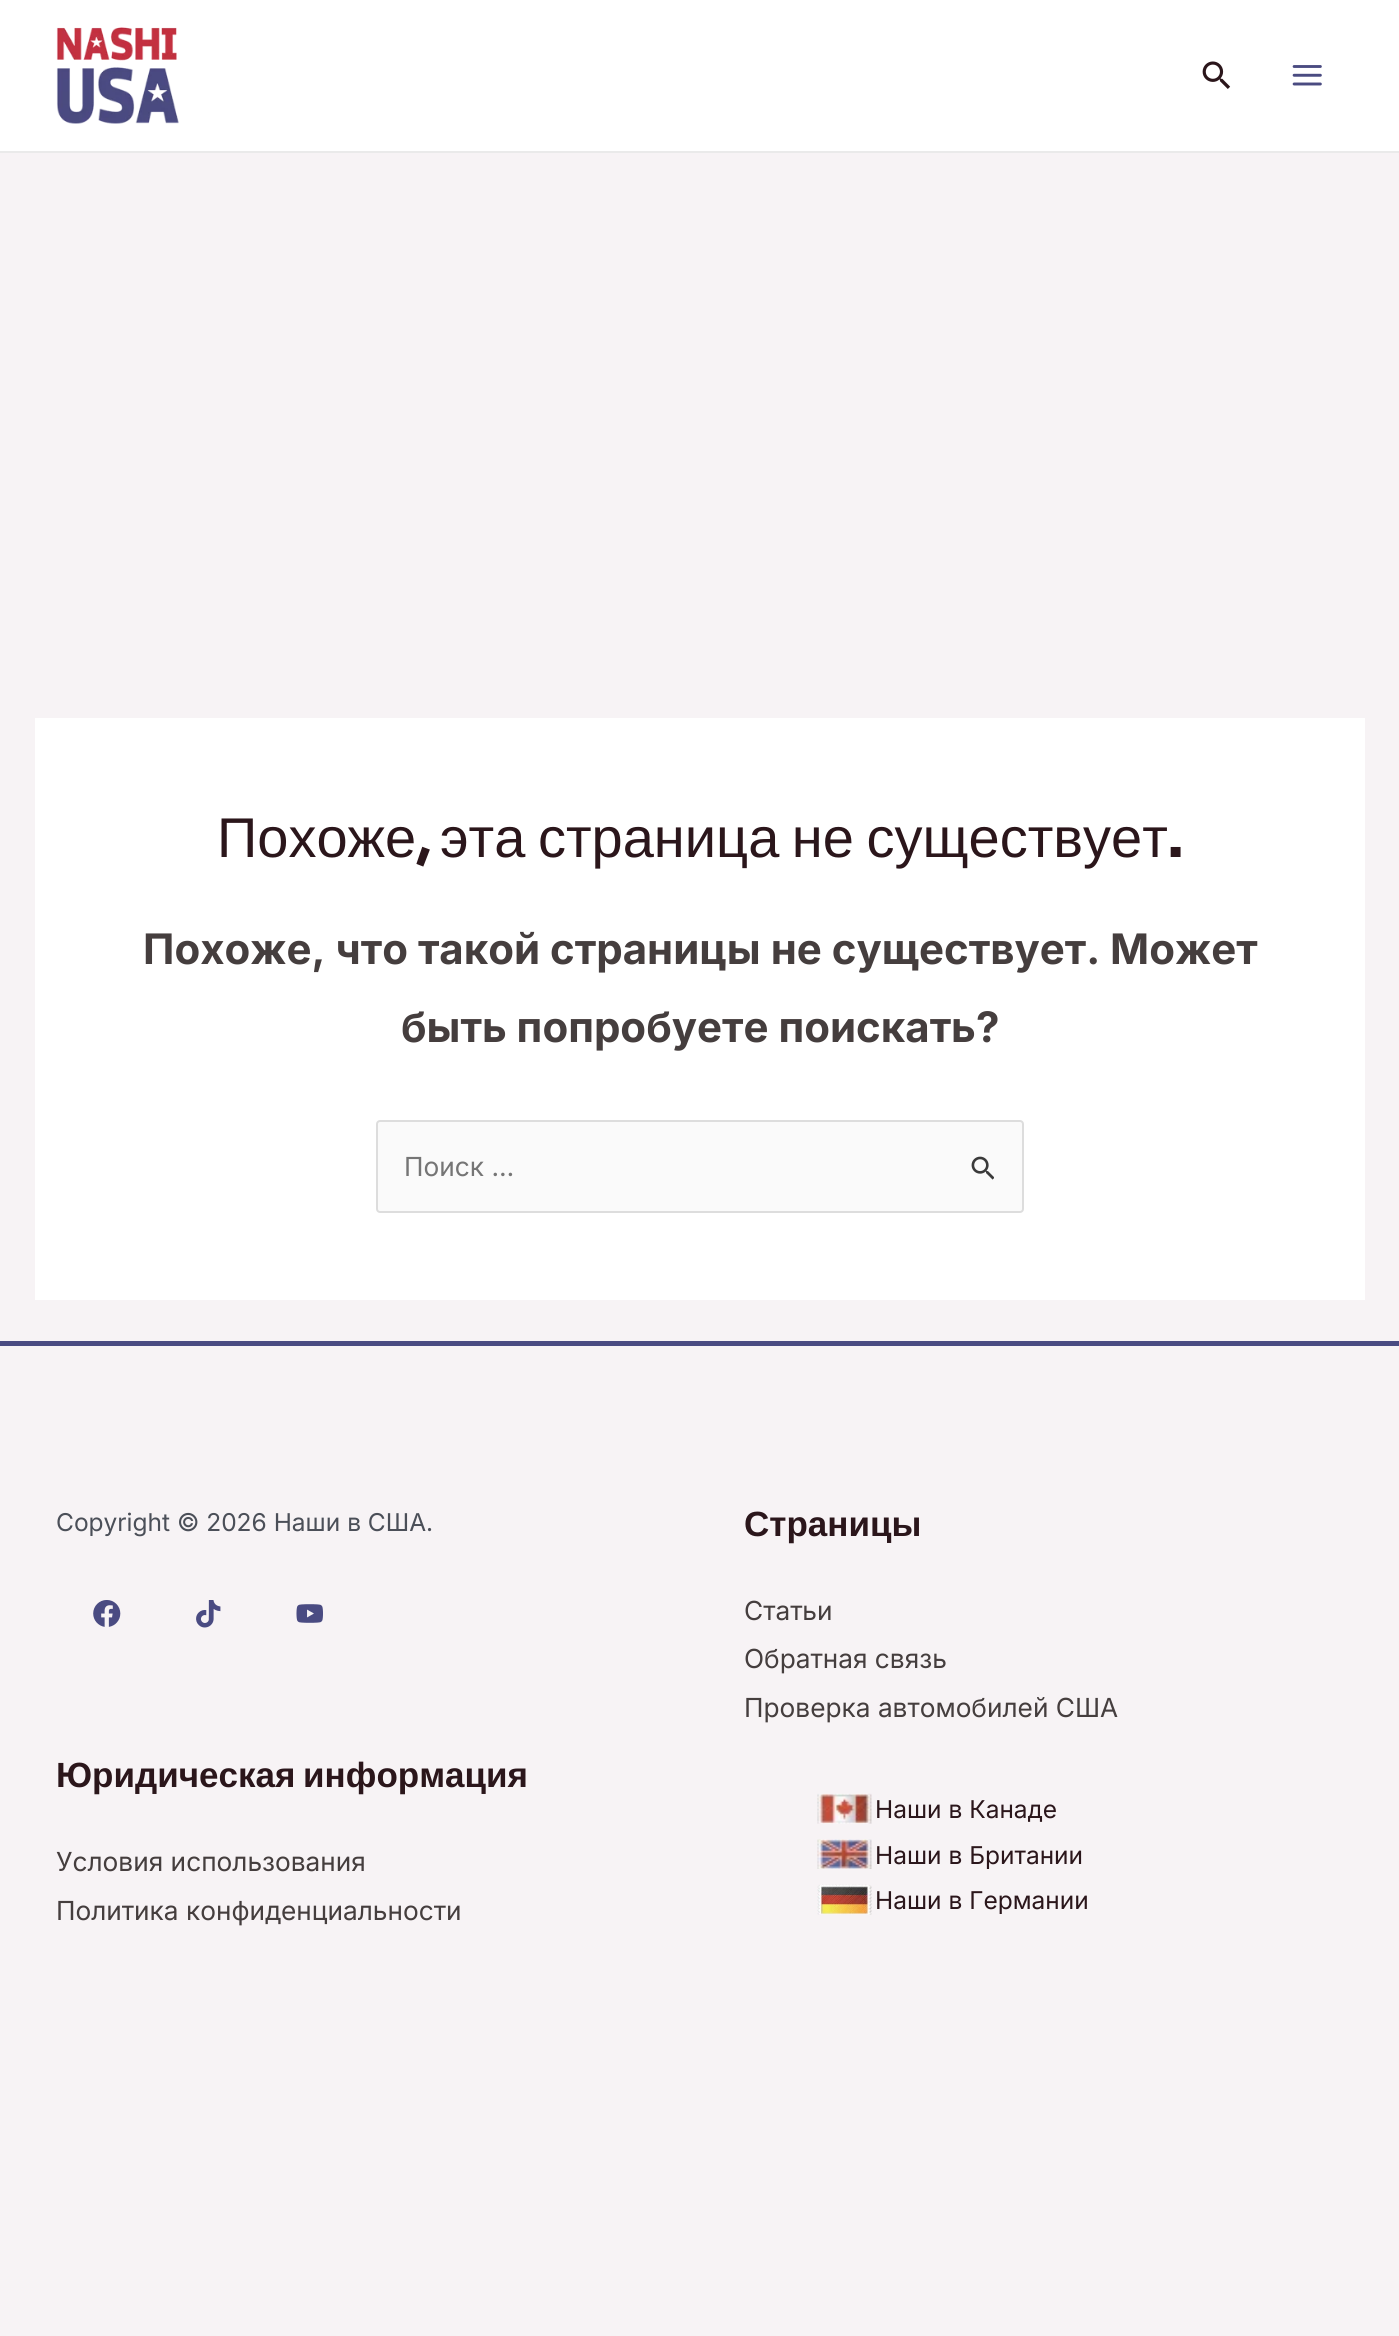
#include <cairo.h>
#include <math.h>
#include <stddef.h>


static void set_color(cairo_t *cr, unsigned color) {
    cairo_set_source_rgb(cr, (color >> 16) / 255.0, (color >> 8 & 255) / 255.0, (color & 255) / 255.0);
}

static void draw_text(cairo_t *cr, double x, double y, const char *s, const char *family, double size, int italic, int bold, unsigned color) {
    cairo_select_font_face(cr, family, italic ? CAIRO_FONT_SLANT_ITALIC : CAIRO_FONT_SLANT_NORMAL,
        bold ? CAIRO_FONT_WEIGHT_BOLD : CAIRO_FONT_WEIGHT_NORMAL);
    cairo_set_font_size(cr, size);
    set_color(cr, color);
    cairo_move_to(cr, x, y);
    cairo_show_text(cr, s);
}

static void draw_spaced(cairo_t *cr, double x, double y, const char *s, double letter, double word) {
    cairo_move_to(cr, x, y);
    while (*s) {
        char ch[5] = {0};
        int n = 0;
        do ch[n++] = *s++; while ((*s & 0xC0) == 0x80);
        cairo_show_text(cr, ch);
        cairo_rel_move_to(cr, letter + word * (*ch == ' '), 0);
    }
}

static void fill_rect(cairo_t *cr, double x, double y, double w, double h, unsigned color) {
    set_color(cr, color);
    cairo_rectangle(cr, x, y, w, h);
    cairo_fill(cr);
}

static void rounded_rect(cairo_t *cr, double x, double y, double w, double h, double r) {
    cairo_new_sub_path(cr);
    cairo_arc(cr, x + w - r, y + h - r, r, 0, M_PI / 2);
    cairo_arc(cr, x + r, y + h - r, r, M_PI / 2, M_PI);
    cairo_arc(cr, x + r, y + r, r, M_PI, 1.5 * M_PI);
    cairo_arc(cr, x + w - r, y + r, r, 1.5 * M_PI, 2 * M_PI);
    cairo_close_path(cr);
}

static void draw_image(cairo_t *cr, const char *path, double x, double y, double w, double h) {
    cairo_surface_t *image = cairo_image_surface_create_from_png(path);
    cairo_save(cr);
    cairo_set_source_surface(cr, image, x, y);
    cairo_rectangle(cr, x, y, w, h);
    cairo_fill(cr);
    cairo_restore(cr);
    cairo_surface_destroy(image);
}

int main(void) {
    cairo_surface_t *surface = cairo_image_surface_create(CAIRO_FORMAT_RGB24, 1399, 2336);
    cairo_t *cr = cairo_create(surface);
    cairo_font_options_t *options = cairo_font_options_create();
    cairo_font_options_set_hint_metrics(options, CAIRO_HINT_METRICS_OFF);
    cairo_font_options_set_hint_style(options, CAIRO_HINT_STYLE_NONE);
    cairo_set_font_options(cr, options);
    cairo_set_miter_limit(cr, 4);
    set_color(cr, 0xF7F3F5);
    cairo_paint(cr);
    fill_rect(cr, 0, 0, 1399, 151, 0xFFFFFF);
    fill_rect(cr, 0, 151, 1399, 2, 0xEAEAEA);
    draw_image(cr, "assets/img1.png", 56, 27, 123, 97);
    draw_image(cr, "assets/img2.png", 1202, 61, 29, 28);
    draw_image(cr, "assets/img3.png", 1292, 65, 30, 21);
    fill_rect(cr, 35, 718, 1330, 582, 0xFFFFFF);
    draw_text(cr, 217, 857, "Похоже", "Liberation Sans", 56, 0, 0, 0x2B161B);
    draw_text(cr, 416, 857, ",", "Sora", 56, 0, 1, 0x2B161B);
    cairo_select_font_face(cr, "Liberation Sans", CAIRO_FONT_SLANT_NORMAL, CAIRO_FONT_WEIGHT_NORMAL);
    draw_spaced(cr, 440, 857, "эта страница не существует", 0, -3);
    draw_text(cr, 1168, 857, ".", "Sora", 56, 0, 1, 0x2B161B);
    draw_text(cr, 143, 964, "Похоже, что такой страницы не существует. Может", "Inter", 42, 0, 1, 0x453E3E);
    draw_text(cr, 401, 1042, "быть попробуете поискать?", "Inter", 42, 0, 1, 0x453E3E);
    set_color(cr, 0xFAFAFA);
    rounded_rect(cr, 377, 1121, 646, 91, 3);
    cairo_fill_preserve(cr);
    set_color(cr, 0xDDDDDD);
    cairo_stroke(cr);
    draw_text(cr, 404, 1176, "Поиск …", "Inter", 26.25, 0, 0, 0x757575);
    draw_image(cr, "assets/img4.png", 971, 1156, 23, 24);
    fill_rect(cr, 0, 1341, 1399, 5, 0x4A4B82);
    draw_text(cr, 56, 1531, "Copyright © 2026 Наши в США.", "Inter", 24.5, 0, 0, 0x4B4F58);
    draw_image(cr, "assets/img5.png", 93, 1600, 28, 27);
    draw_image(cr, "assets/img6.png", 196, 1600, 25, 28);
    draw_image(cr, "assets/img7.png", 296, 1604, 27, 19);
    draw_text(cr, 744, 1536, "Страницы", "Liberation Sans", 35, 0, 1, 0x2B161B);
    draw_text(cr, 744, 1620, "Статьи", "Inter", 26.25, 0, 0, 0x453E3E);
    draw_text(cr, 744, 1668, "Обратная связь", "Inter", 26.25, 0, 0, 0x453E3E);
    draw_text(cr, 744, 1717, "Проверка автомобилей США", "Inter", 26.25, 0, 0, 0x453E3E);
    cairo_select_font_face(cr, "Liberation Sans", CAIRO_FONT_SLANT_NORMAL, CAIRO_FONT_WEIGHT_BOLD);
    cairo_set_font_size(cr, 35);
    set_color(cr, 0x2B161B);
    draw_spaced(cr, 56, 1787, "Юридическая информация", 0, -2);
    draw_text(cr, 56, 1871, "Условия использования", "Inter", 26.25, 0, 0, 0x453E3E);
    draw_text(cr, 56, 1920, "Политика конфиденциальности", "Inter", 26.25, 0, 0, 0x453E3E);
    draw_image(cr, "assets/img8.png", 817, 1793, 55, 31);
    draw_text(cr, 875, 1818, "Наши в Канаде", "Inter", 24.5, 0, 0, 0x2B161B);
    draw_image(cr, "assets/img9.png", 817, 1839, 55, 30);
    draw_text(cr, 875, 1864, "Наши в Британии", "Inter", 24.5, 0, 0, 0x2B161B);
    draw_image(cr, "assets/img10.png", 817, 1884, 55, 31);
    draw_text(cr, 875, 1909, "Наши в Германии", "Inter", 24.5, 0, 0, 0x2B161B);
    cairo_surface_write_to_png(surface, "output.png");
    cairo_font_options_destroy(options);
    cairo_destroy(cr);
    cairo_surface_destroy(surface);
    return 0;
}
